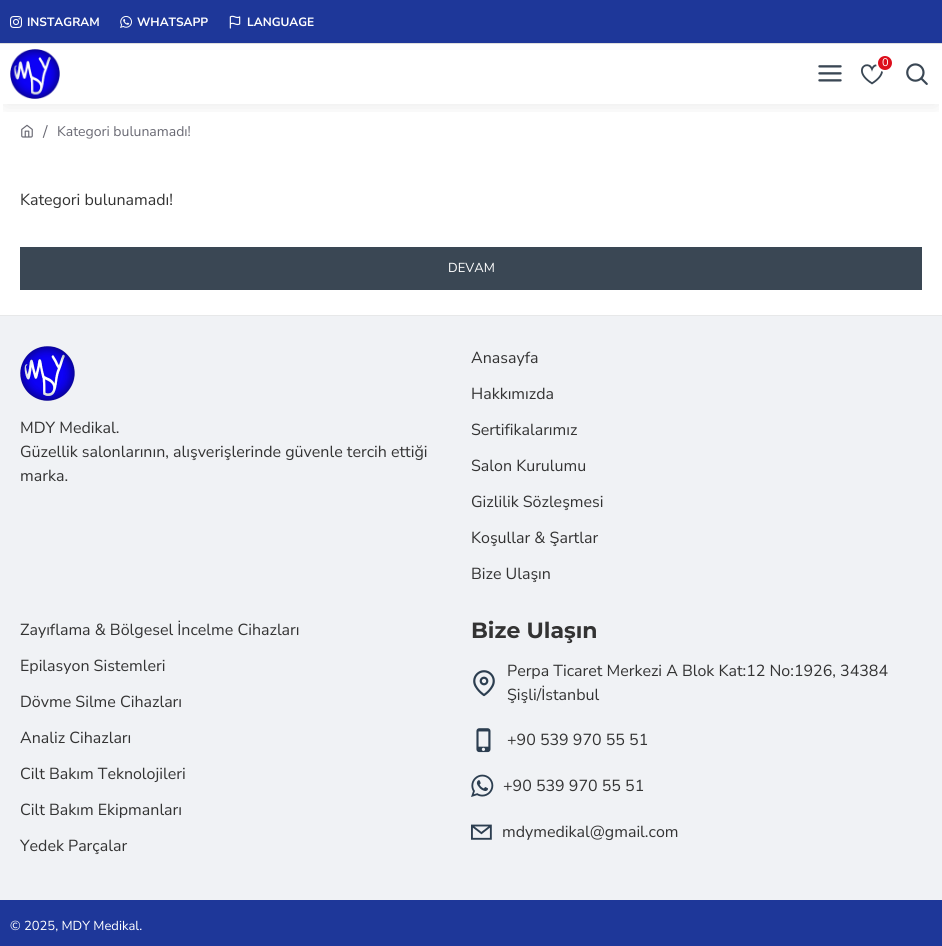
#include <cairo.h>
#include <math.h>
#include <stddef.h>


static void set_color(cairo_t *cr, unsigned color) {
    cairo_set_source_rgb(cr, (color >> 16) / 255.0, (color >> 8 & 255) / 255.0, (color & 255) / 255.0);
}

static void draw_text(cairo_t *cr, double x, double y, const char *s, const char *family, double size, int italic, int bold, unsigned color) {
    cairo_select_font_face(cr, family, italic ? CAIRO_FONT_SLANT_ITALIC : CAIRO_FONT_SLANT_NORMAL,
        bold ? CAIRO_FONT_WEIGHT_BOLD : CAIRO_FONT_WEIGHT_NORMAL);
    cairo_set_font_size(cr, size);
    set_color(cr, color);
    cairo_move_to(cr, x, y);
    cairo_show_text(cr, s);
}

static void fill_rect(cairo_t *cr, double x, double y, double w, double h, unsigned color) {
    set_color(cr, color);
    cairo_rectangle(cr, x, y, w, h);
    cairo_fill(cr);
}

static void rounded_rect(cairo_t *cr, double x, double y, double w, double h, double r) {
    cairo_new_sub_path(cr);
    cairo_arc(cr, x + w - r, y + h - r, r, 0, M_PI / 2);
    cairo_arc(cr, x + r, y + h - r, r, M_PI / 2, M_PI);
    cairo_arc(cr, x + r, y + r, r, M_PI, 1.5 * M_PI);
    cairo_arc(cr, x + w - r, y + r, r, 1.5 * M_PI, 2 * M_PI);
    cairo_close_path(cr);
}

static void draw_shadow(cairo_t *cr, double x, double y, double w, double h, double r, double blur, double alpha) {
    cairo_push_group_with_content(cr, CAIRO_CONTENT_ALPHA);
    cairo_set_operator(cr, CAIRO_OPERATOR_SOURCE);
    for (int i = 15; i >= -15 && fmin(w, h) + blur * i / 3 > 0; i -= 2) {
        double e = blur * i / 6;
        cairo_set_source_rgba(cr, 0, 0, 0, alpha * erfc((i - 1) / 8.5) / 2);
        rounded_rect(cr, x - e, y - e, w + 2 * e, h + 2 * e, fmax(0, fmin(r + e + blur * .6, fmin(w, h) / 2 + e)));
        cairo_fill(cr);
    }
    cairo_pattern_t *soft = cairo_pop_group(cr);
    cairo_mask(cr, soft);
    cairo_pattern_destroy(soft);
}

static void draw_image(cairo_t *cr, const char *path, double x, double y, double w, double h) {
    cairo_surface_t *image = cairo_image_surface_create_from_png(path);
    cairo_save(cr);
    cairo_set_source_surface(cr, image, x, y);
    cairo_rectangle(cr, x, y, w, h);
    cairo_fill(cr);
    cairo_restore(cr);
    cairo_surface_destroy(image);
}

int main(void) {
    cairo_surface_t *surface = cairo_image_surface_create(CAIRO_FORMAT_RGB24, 942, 946);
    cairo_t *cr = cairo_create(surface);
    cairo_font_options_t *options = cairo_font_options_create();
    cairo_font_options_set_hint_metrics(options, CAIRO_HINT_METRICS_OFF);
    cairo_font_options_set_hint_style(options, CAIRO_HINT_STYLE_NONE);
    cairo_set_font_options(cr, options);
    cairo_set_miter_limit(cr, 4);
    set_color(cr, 0xFFFFFF);
    cairo_paint(cr);
    draw_image(cr, "assets/img8.png", 21, 124, 12, 14);
    cairo_save(cr);
    cairo_rectangle(cr, 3, 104, 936, 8);
    cairo_clip(cr);
    set_color(cr, 0x000000);
    draw_shadow(cr, 5, 54, 932, 50, 0, 10, 0.1);
    cairo_restore(cr);
    fill_rect(cr, 0, 0, 942, 43, 0x1E3799);
    fill_rect(cr, 0, 43, 942, 1, 0xDDDDDD);
    draw_image(cr, "assets/img1.png", 10, 16, 12, 12);
    draw_text(cr, 27, 26, "INSTAGRAM", "Nunito Sans", 12, 0, 1, 0xFFFFFF);
    draw_image(cr, "assets/img2.png", 120, 16, 12, 12);
    draw_text(cr, 137, 26, "WHATSAPP", "Nunito Sans", 12, 0, 1, 0xFFFFFF);
    draw_image(cr, "assets/img3.png", 229, 15, 12, 14);
    draw_text(cr, 247, 26, "LANGUAGE", "Nunito Sans", 12, 0, 1, 0xFFFFFF);
    draw_image(cr, "assets/img4.png", 10, 49, 50, 50);
    draw_image(cr, "assets/img5.png", 818, 65, 24, 17);
    draw_image(cr, "assets/img6.png", 861, 64, 22, 21);
    set_color(cr, 0xDD0E1C);
    cairo_arc(cr, 885, 63, 8, 0, 2 * M_PI);
    cairo_fill_preserve(cr);
    set_color(cr, 0xFFFFFF);
    cairo_stroke(cr);
    draw_text(cr, 882, 66, "0", "Nunito Sans", 11, 0, 0, 0xFFFFFF);
    draw_image(cr, "assets/img7.png", 906, 63, 22, 22);
    draw_text(cr, 43, 137, "/", "Nunito Sans", 16, 0, 0, 0x696973);
    draw_text(cr, 57, 136, "Kategori bulunamadı!", "Nunito Sans", 14, 0, 0, 0x696973);
    draw_text(cr, 20, 205, "Kategori bulunamadı!", "Nunito Sans", 16, 0, 0, 0x333333);
    fill_rect(cr, 20, 247, 902, 43, 0x3A4754);
    draw_text(cr, 448, 272, "DEVAM", "Nunito Sans", 13, 0, 0, 0xFFFFFF);
    fill_rect(cr, 0, 316, 942, 584, 0xF0F2F5);
    fill_rect(cr, 0, 315, 942, 1, 0xE7E8E9);
    draw_image(cr, "assets/img9.png", 20, 346, 55, 55);
    draw_text(cr, 20, 433, "MDY Medikal.", "Nunito Sans", 16, 0, 0, 0x333333);
    draw_text(cr, 20, 457, "Güzellik salonlarının, alışverişlerinde güvenle tercih ettiği", "Nunito Sans", 16, 0, 0, 0x333333);
    draw_text(cr, 20, 481, "marka.", "Nunito Sans", 16, 0, 0, 0x333333);
    draw_text(cr, 471, 363, "Anasayfa", "Nunito Sans", 16, 0, 0, 0x333333);
    draw_text(cr, 471, 399, "Hakkımızda", "Nunito Sans", 16, 0, 0, 0x333333);
    draw_text(cr, 471, 435, "Sertifikalarımız", "Nunito Sans", 16, 0, 0, 0x333333);
    draw_text(cr, 471, 471, "Salon Kurulumu", "Nunito Sans", 16, 0, 0, 0x333333);
    draw_text(cr, 471, 507, "Gizlilik Sözleşmesi", "Nunito Sans", 16, 0, 0, 0x333333);
    draw_text(cr, 471, 543, "Koşullar & Şartlar", "Nunito Sans", 16, 0, 0, 0x333333);
    draw_text(cr, 471, 579, "Bize Ulaşın", "Nunito Sans", 16, 0, 0, 0x333333);
    draw_text(cr, 20, 635, "Zayıflama & Bölgesel İncelme Cihazları", "Nunito Sans", 16, 0, 0, 0x333333);
    draw_text(cr, 20, 671, "Epilasyon Sistemleri", "Nunito Sans", 16, 0, 0, 0x333333);
    draw_text(cr, 20, 707, "Dövme Silme Cihazları", "Nunito Sans", 16, 0, 0, 0x333333);
    draw_text(cr, 20, 743, "Analiz Cihazları", "Nunito Sans", 16, 0, 0, 0x333333);
    draw_text(cr, 20, 779, "Cilt Bakım Teknolojileri", "Nunito Sans", 16, 0, 0, 0x333333);
    draw_text(cr, 20, 815, "Cilt Bakım Ekipmanları", "Nunito Sans", 16, 0, 0, 0x333333);
    draw_text(cr, 20, 851, "Yedek Parçalar", "Nunito Sans", 16, 0, 0, 0x333333);
    draw_text(cr, 471, 638, "Bize Ulaşın", "Montserrat", 22, 0, 1, 0x333333);
    draw_image(cr, "assets/img10.png", 473, 670, 22, 27);
    draw_text(cr, 507, 676, "Perpa Ticaret Merkezi A Blok Kat:12 No:1926, 34384", "Nunito Sans", 16, 0, 0, 0x333333);
    draw_text(cr, 507, 700, "Şişli/İstanbul", "Nunito Sans", 16, 0, 0, 0x333333);
    draw_image(cr, "assets/img11.png", 476, 728, 15, 25);
    draw_text(cr, 507, 745, "+90 539 970 55 51", "Nunito Sans", 16, 0, 0, 0x333333);
    draw_image(cr, "assets/img12.png", 471, 774, 23, 23);
    draw_text(cr, 503, 791, "+90 539 970 55 51", "Nunito Sans", 16, 0, 0, 0x333333);
    draw_image(cr, "assets/img13.png", 471, 824, 21, 16);
    draw_text(cr, 502, 837, "mdymedikal@gmail.com", "Nunito Sans", 16, 0, 0, 0x333333);
    fill_rect(cr, 0, 900, 942, 46, 0x1E3799);
    draw_text(cr, 10, 930, "© 2025, MDY Medikal.", "Nunito Sans", 13, 0, 0, 0xFFFFFF);
    cairo_surface_write_to_png(surface, "output.png");
    cairo_font_options_destroy(options);
    cairo_destroy(cr);
    cairo_surface_destroy(surface);
    return 0;
}
